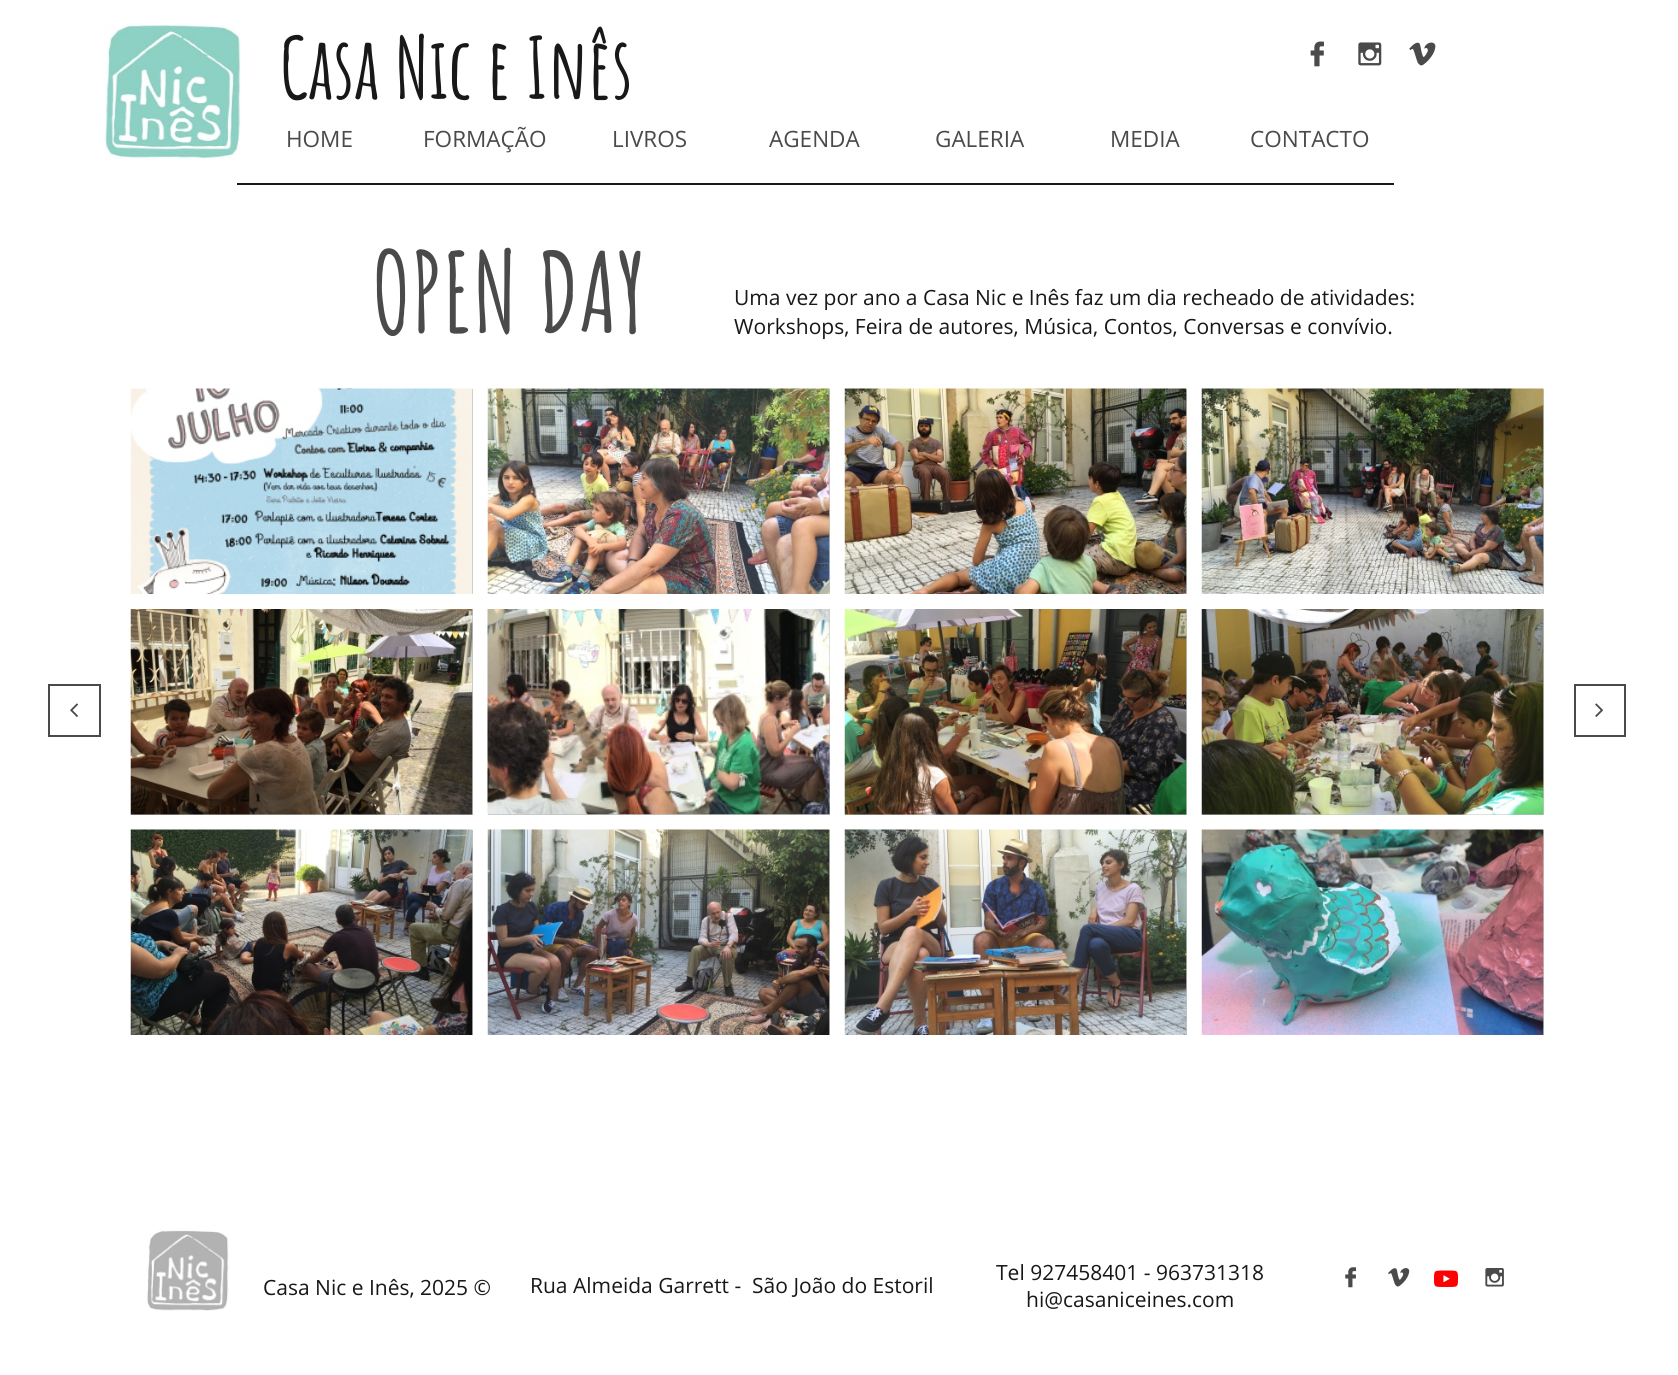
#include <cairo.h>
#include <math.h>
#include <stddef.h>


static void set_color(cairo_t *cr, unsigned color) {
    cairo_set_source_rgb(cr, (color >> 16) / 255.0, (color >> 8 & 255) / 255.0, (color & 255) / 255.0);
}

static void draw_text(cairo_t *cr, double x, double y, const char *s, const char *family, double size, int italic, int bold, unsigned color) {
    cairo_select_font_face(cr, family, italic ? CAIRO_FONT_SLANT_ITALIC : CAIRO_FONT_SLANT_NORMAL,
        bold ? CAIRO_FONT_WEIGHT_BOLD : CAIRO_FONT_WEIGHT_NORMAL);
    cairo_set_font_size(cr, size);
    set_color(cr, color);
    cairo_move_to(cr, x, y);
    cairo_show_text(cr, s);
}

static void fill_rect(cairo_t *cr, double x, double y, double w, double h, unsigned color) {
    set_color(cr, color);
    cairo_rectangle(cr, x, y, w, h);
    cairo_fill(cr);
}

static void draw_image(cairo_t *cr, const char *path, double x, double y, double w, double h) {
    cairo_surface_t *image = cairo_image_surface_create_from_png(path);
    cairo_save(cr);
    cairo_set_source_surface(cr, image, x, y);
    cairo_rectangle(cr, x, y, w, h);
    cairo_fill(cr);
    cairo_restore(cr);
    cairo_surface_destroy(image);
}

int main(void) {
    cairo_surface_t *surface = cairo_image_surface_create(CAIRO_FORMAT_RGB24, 1678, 1375);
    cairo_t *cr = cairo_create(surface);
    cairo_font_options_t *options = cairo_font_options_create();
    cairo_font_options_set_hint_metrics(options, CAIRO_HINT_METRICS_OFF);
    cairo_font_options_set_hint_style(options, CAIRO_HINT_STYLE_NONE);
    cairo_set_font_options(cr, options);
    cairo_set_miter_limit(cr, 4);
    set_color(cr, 0xFFFFFF);
    cairo_paint(cr);
    draw_image(cr, "assets/img1.png", 104, 24, 137, 137);
    draw_text(cr, 280, 99, "Casa Nic e Inês", "Amatic SC", 84, 0, 1, 0x181818);
    draw_image(cr, "assets/img2.png", 1310, 41, 14, 26);
    draw_image(cr, "assets/img3.png", 1358, 42, 24, 24);
    draw_image(cr, "assets/img4.png", 1409, 42, 27, 24);
    fill_rect(cr, 237, 183, 1157, 2, 0x181818);
    draw_text(cr, 286, 147, "HOME", "Open Sans", 22.5, 0, 0, 0x4A4A4A);
    draw_text(cr, 423, 147, "FORMAÇÃO", "Open Sans", 22.5, 0, 0, 0x4A4A4A);
    draw_text(cr, 612, 147, "LIVROS", "Open Sans", 22.5, 0, 0, 0x4A4A4A);
    draw_text(cr, 769, 147, "AGENDA", "Open Sans", 22.5, 0, 0, 0x4A4A4A);
    draw_text(cr, 935, 147, "GALERIA", "Open Sans", 22.5, 0, 0, 0x4A4A4A);
    draw_text(cr, 1110, 147, "MEDIA", "Open Sans", 22.5, 0, 0, 0x4A4A4A);
    draw_text(cr, 1250, 147, "CONTACTO", "Open Sans", 22.5, 0, 0, 0x4A4A4A);
    draw_text(cr, 372, 333, "OPEN DAY", "Amatic SC", 109.5, 0, 1, 0x4A4A4A);
    draw_text(cr, 734, 305, "Uma vez por ano a Casa Nic e Inês faz um dia recheado de atividades:", "Open Sans", 21, 0, 0, 0x181818);
    draw_text(cr, 734, 334, "Workshops, Feira de autores, Música, Contos, Conversas e convívio.", "Open Sans", 21, 0, 0, 0x181818);
    cairo_rectangle(cr, 49, 685, 51, 51);
    set_color(cr, 0x4A4A4A);
    cairo_stroke(cr);
    draw_image(cr, "assets/img5.png", 70, 703, 8, 14);
    fill_rect(cr, 472, 389, 1, 205, 0xBDC3C3);
    draw_image(cr, "assets/img6.png", 130, 388, 343, 206);
    fill_rect(cr, 829, 389, 1, 205, 0xBDC3C3);
    draw_image(cr, "assets/img7.png", 487, 388, 343, 206);
    fill_rect(cr, 1186, 389, 1, 205, 0xBDC3C3);
    draw_image(cr, "assets/img8.png", 844, 388, 343, 206);
    fill_rect(cr, 1543, 389, 1, 205, 0xBDC3C3);
    draw_image(cr, "assets/img9.png", 1201, 388, 343, 206);
    fill_rect(cr, 131, 609, 342, 206, 0xBDC3C3);
    draw_image(cr, "assets/img10.png", 130, 609, 343, 206);
    fill_rect(cr, 488, 609, 342, 206, 0xBDC3C3);
    draw_image(cr, "assets/img11.png", 487, 609, 343, 206);
    fill_rect(cr, 845, 609, 342, 206, 0xBDC3C3);
    draw_image(cr, "assets/img12.png", 844, 609, 343, 206);
    fill_rect(cr, 1202, 609, 342, 206, 0xBDC3C3);
    draw_image(cr, "assets/img13.png", 1201, 609, 343, 206);
    fill_rect(cr, 472, 830, 1, 205, 0xBDC3C3);
    draw_image(cr, "assets/img14.png", 130, 829, 343, 206);
    fill_rect(cr, 829, 830, 1, 205, 0xBDC3C3);
    draw_image(cr, "assets/img15.png", 487, 829, 343, 206);
    fill_rect(cr, 1186, 830, 1, 205, 0xBDC3C3);
    draw_image(cr, "assets/img16.png", 844, 829, 343, 206);
    fill_rect(cr, 1543, 830, 1, 205, 0xBDC3C3);
    draw_image(cr, "assets/img17.png", 1201, 829, 343, 206);
    cairo_rectangle(cr, 1575, 685, 50, 51);
    set_color(cr, 0x4A4A4A);
    cairo_stroke(cr);
    draw_image(cr, "assets/img18.png", 1595, 703, 9, 14);
    draw_image(cr, "assets/img19.png", 147, 1230, 82, 81);
    draw_text(cr, 263, 1295, "Casa Nic e Inês, 2025 ©", "Open Sans", 21, 0, 0, 0x181818);
    draw_text(cr, 530, 1293, "Rua Almeida Garrett -  São João do Estoril", "Open Sans", 21, 0, 0, 0x181818);
    draw_text(cr, 996, 1280, "Tel 927458401 - 963731318", "Open Sans", 21, 0, 0, 0x181818);
    draw_text(cr, 1026, 1307, "hi@casaniceines.com", "Open Sans", 21, 0, 0, 0x181818);
    draw_image(cr, "assets/img20.png", 1345, 1267, 12, 21);
    draw_image(cr, "assets/img21.png", 1388, 1268, 22, 19);
    draw_image(cr, "assets/img22.png", 1434, 1270, 24, 17);
    draw_image(cr, "assets/img23.png", 1485, 1268, 19, 19);
    cairo_surface_write_to_png(surface, "output.png");
    cairo_font_options_destroy(options);
    cairo_destroy(cr);
    cairo_surface_destroy(surface);
    return 0;
}
